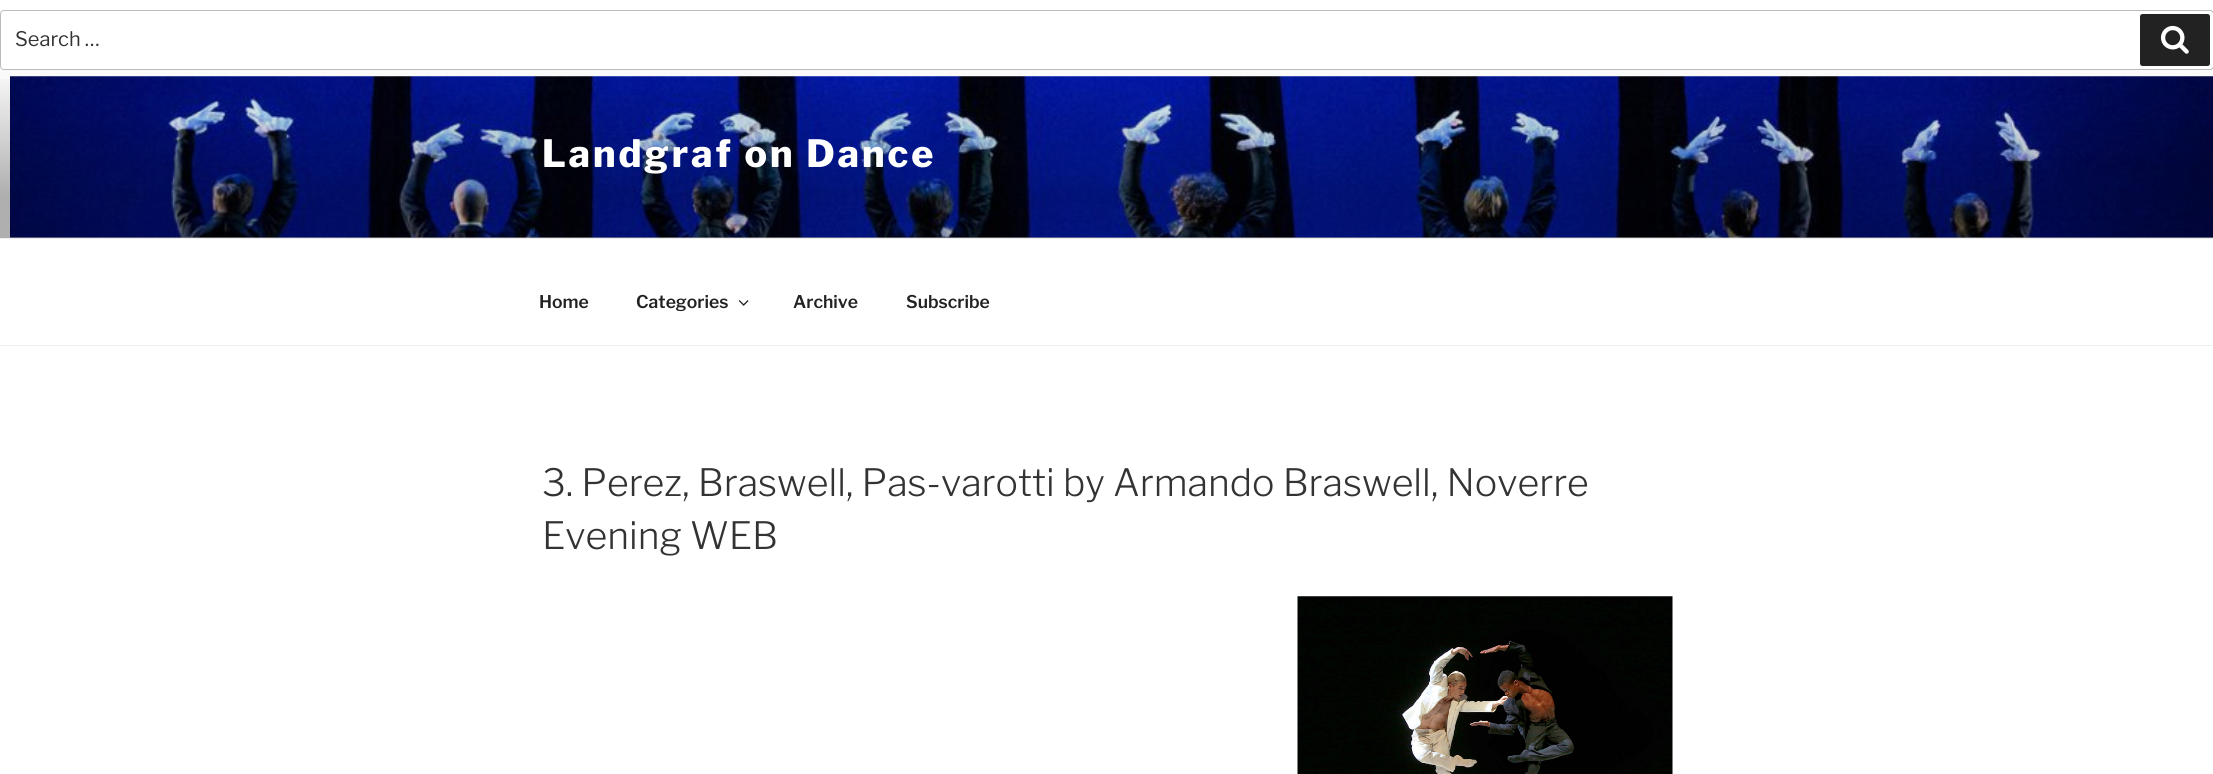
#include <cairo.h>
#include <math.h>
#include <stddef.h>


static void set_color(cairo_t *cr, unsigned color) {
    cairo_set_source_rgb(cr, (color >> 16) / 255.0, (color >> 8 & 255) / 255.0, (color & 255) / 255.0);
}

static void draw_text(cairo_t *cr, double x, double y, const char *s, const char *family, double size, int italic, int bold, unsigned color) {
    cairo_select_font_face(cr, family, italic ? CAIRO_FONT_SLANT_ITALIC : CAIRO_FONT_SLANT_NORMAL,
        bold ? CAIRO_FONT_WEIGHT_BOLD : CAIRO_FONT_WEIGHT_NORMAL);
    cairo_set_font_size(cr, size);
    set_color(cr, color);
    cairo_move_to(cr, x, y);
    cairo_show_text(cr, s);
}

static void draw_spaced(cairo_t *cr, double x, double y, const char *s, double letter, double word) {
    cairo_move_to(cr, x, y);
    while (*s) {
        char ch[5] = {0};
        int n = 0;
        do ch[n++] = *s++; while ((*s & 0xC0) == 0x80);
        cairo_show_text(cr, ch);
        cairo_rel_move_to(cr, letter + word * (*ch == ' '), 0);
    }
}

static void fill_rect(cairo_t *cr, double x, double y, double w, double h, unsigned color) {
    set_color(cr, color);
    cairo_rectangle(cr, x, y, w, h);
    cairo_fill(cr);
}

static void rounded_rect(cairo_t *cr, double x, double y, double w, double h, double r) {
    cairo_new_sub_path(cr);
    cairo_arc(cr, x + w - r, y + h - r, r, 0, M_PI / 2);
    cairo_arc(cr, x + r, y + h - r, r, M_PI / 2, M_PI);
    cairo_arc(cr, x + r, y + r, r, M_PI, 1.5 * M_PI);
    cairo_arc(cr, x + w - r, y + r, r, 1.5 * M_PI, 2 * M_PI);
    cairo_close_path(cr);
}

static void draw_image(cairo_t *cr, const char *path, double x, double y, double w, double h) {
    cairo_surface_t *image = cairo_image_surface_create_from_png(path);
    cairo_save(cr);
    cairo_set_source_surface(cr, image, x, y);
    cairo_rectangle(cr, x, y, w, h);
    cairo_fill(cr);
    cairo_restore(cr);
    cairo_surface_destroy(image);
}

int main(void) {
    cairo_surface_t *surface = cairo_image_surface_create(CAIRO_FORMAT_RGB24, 2213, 774);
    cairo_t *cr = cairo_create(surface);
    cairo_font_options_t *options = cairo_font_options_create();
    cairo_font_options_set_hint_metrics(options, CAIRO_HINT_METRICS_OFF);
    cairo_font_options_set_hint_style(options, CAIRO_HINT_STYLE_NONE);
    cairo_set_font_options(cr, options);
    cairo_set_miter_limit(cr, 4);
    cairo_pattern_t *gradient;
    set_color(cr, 0xFFFFFF);
    cairo_paint(cr);
    rounded_rect(cr, 0.5, 10.5, 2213, 59, 3.5);
    set_color(cr, 0xBBBBBB);
    cairo_set_line_width(cr, 1);
    cairo_stroke(cr);
    draw_text(cr, 15, 46, "Search …", "Libre Franklin", 20, 0, 0, 0x333333);
    set_color(cr, 0x222222);
    rounded_rect(cr, 2140, 14, 70, 52, 2.5);
    cairo_fill(cr);
    draw_image(cr, "assets/img1.png", 2160, 25, 29, 29);
    fill_rect(cr, 0, 70, 2213, 168, 0xFAFAFA);
    draw_image(cr, "assets/img2.png", 10, 76, 2203, 162);
    gradient = cairo_pattern_create_linear(1107, 70, 1107, 238);
    cairo_pattern_add_color_stop_rgba(gradient, 0, 0, 0, 0, 0);
    cairo_pattern_add_color_stop_rgba(gradient, 0.75, 0, 0, 0, 0.3);
    cairo_pattern_add_color_stop_rgba(gradient, 1, 0, 0, 0, 0.3);
    cairo_set_source(cr, gradient);
    cairo_pattern_destroy(gradient);
    cairo_rectangle(cr, 0, 79, 2213, 159);
    cairo_fill(cr);
    cairo_select_font_face(cr, "Libre Franklin ExtraBold", CAIRO_FONT_SLANT_NORMAL, CAIRO_FONT_WEIGHT_NORMAL);
    cairo_set_font_size(cr, 37.5);
    set_color(cr, 0xFFFFFF);
    draw_spaced(cr, 542, 167, "Landgraf on Dance", 3, 0);
    fill_rect(cr, 0, 238, 2213, 1, 0xEEEEEE);
    fill_rect(cr, 0, 345, 2213, 1, 0xEEEEEE);
    draw_text(cr, 539, 308, "Home", "Libre Franklin SemiBold", 17.5, 0, 0, 0x222222);
    draw_text(cr, 636, 308, "Categories", "Libre Franklin SemiBold", 17.5, 0, 0, 0x222222);
    draw_image(cr, "assets/img3.png", 738, 300, 11, 6);
    draw_text(cr, 793, 308, "Archive", "Libre Franklin SemiBold", 17.5, 0, 0, 0x222222);
    draw_text(cr, 906, 308, "Subscribe", "Libre Franklin SemiBold", 17.5, 0, 0, 0x222222);
    draw_text(cr, 542, 496, "3. Perez, Braswell, Pas-varotti by Armando Braswell, Noverre", "Libre Franklin Light", 37.5, 0, 0, 0x333333);
    draw_text(cr, 542, 549, "Evening WEB", "Libre Franklin Light", 37.5, 0, 0, 0x333333);
    draw_image(cr, "assets/img4.png", 1297, 596, 376, 178);
    cairo_surface_write_to_png(surface, "output.png");
    cairo_font_options_destroy(options);
    cairo_destroy(cr);
    cairo_surface_destroy(surface);
    return 0;
}
